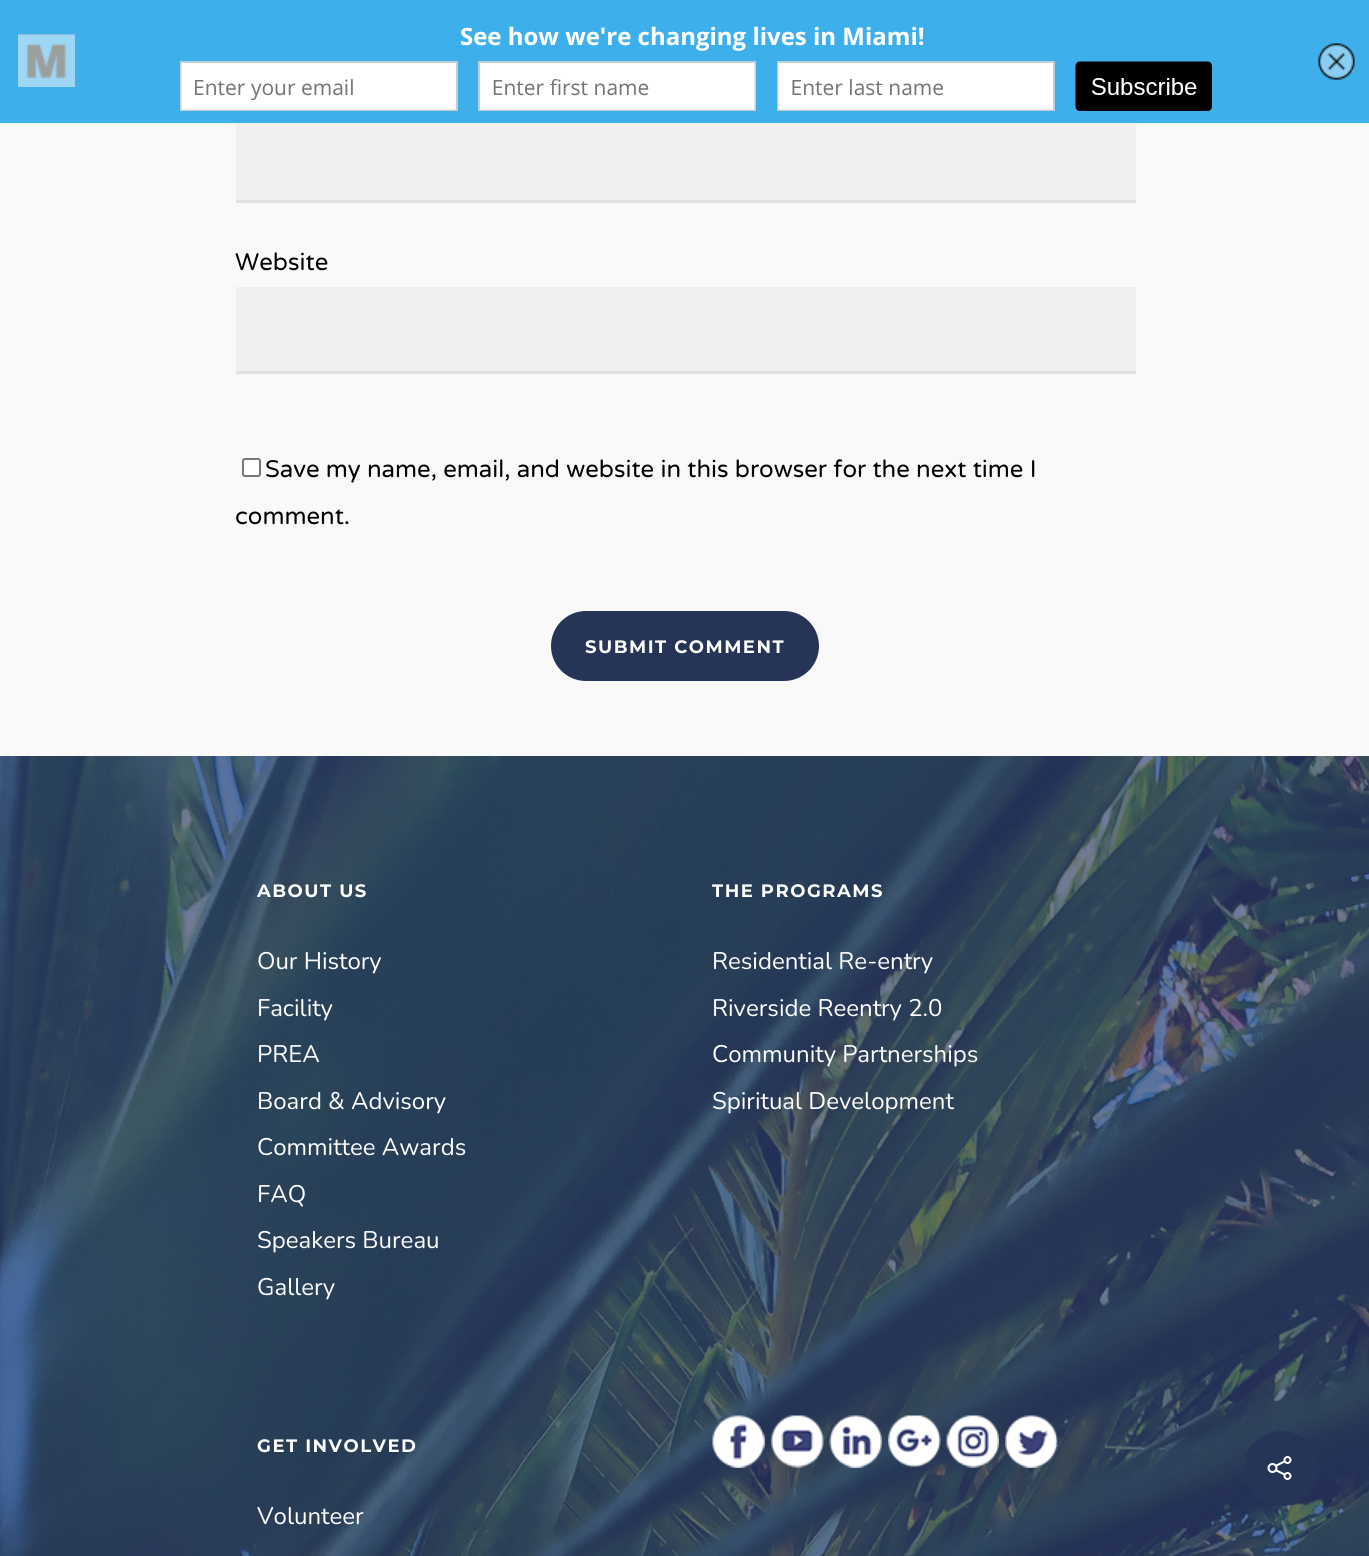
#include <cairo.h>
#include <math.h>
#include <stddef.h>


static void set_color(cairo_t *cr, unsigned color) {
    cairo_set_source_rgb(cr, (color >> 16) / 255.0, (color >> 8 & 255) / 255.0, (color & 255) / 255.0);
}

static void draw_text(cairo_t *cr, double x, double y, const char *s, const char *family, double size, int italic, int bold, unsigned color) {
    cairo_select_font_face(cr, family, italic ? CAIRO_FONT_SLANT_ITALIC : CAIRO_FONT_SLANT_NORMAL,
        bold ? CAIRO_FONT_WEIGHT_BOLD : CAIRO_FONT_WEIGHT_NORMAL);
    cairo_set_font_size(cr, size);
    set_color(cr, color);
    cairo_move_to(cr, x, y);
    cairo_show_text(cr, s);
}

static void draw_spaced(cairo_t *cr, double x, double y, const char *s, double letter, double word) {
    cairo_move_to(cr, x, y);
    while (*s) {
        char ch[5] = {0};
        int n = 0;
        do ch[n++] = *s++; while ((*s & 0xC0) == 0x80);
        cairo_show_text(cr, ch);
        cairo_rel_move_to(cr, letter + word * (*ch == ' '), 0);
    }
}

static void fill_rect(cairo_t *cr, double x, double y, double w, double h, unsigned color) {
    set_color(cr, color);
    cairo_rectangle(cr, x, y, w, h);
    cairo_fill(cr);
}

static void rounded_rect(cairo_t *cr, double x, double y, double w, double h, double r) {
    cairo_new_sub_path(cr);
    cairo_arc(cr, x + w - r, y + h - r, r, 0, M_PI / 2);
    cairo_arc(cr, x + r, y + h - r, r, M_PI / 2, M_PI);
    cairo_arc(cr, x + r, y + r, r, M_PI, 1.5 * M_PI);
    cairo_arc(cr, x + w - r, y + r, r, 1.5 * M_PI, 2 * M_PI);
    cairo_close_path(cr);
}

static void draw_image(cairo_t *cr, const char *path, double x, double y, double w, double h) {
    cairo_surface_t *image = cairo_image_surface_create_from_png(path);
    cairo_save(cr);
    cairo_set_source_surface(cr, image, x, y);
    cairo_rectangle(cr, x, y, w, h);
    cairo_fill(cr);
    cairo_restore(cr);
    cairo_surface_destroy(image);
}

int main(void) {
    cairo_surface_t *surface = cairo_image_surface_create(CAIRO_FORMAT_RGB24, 1369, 1556);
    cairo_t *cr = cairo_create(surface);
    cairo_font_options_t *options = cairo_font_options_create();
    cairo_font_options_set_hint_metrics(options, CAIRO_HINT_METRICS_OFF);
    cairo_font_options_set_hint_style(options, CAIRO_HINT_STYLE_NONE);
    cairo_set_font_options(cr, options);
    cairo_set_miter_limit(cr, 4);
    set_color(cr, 0xFFFFFF);
    cairo_paint(cr);
    draw_image(cr, "assets/img1.png", 0, 0, 1369, 123);
    fill_rect(cr, 0, 123, 1369, 633, 0xF9F9F9);
    fill_rect(cr, 236, 123, 900, 77, 0xF0F0F0);
    fill_rect(cr, 236, 200, 900, 3, 0xE0E0E0);
    draw_text(cr, 235, 270, "Website", "Varela Round", 24, 0, 0, 0x000000);
    fill_rect(cr, 236, 287, 900, 84, 0xF0F0F0);
    fill_rect(cr, 236, 371, 900, 3, 0xE0E0E0);
    set_color(cr, 0xFFFFFF);
    rounded_rect(cr, 243, 459, 17, 17, 2);
    cairo_fill_preserve(cr);
    set_color(cr, 0x767676);
    cairo_stroke(cr);
    draw_text(cr, 265, 477, "Save my name, email, and website in this browser for the next time I", "Varela Round", 24, 0, 0, 0x000000);
    draw_text(cr, 235, 524, "comment.", "Varela Round", 24, 0, 0, 0x000000);
    set_color(cr, 0x253457);
    rounded_rect(cr, 551, 611, 268, 70, 35);
    cairo_fill(cr);
    cairo_select_font_face(cr, "Montserrat Thin", CAIRO_FONT_SLANT_NORMAL, CAIRO_FONT_WEIGHT_NORMAL);
    cairo_set_font_size(cr, 18);
    set_color(cr, 0xFFFFFF);
    draw_spaced(cr, 585, 653, "SUBMIT COMMENT", 1.5, 0);
    draw_image(cr, "assets/img2.png", 0, 756, 1369, 800);
    draw_spaced(cr, 257, 897, "ABOUT US", 1.5, 0);
    draw_text(cr, 257, 969, "Our History", "Nunito", 24, 0, 0, 0xFFFFFF);
    draw_text(cr, 257, 1016, "Facility", "Nunito", 24, 0, 0, 0xFFFFFF);
    draw_text(cr, 257, 1062, "PREA", "Nunito", 24, 0, 0, 0xFFFFFF);
    draw_text(cr, 257, 1109, "Board & Advisory", "Nunito", 24, 0, 0, 0xFFFFFF);
    draw_text(cr, 257, 1155, "Committee Awards", "Nunito", 24, 0, 0, 0xFFFFFF);
    draw_text(cr, 257, 1202, "FAQ", "Nunito", 24, 0, 0, 0xFFFFFF);
    draw_text(cr, 257, 1248, "Speakers Bureau", "Nunito", 24, 0, 0, 0xFFFFFF);
    draw_text(cr, 257, 1295, "Gallery", "Nunito", 24, 0, 0, 0xFFFFFF);
    cairo_select_font_face(cr, "Montserrat Thin", CAIRO_FONT_SLANT_NORMAL, CAIRO_FONT_WEIGHT_NORMAL);
    cairo_set_font_size(cr, 18);
    draw_spaced(cr, 712, 897, "THE PROGRAMS", 1.5, 0);
    draw_text(cr, 712, 969, "Residential Re-entry", "Nunito", 24, 0, 0, 0xFFFFFF);
    draw_text(cr, 712, 1016, "Riverside Reentry 2.0", "Nunito", 24, 0, 0, 0xFFFFFF);
    draw_text(cr, 712, 1062, "Community Partnerships", "Nunito", 24, 0, 0, 0xFFFFFF);
    draw_text(cr, 712, 1109, "Spiritual Development", "Nunito", 24, 0, 0, 0xFFFFFF);
    cairo_select_font_face(cr, "Montserrat Thin", CAIRO_FONT_SLANT_NORMAL, CAIRO_FONT_WEIGHT_NORMAL);
    cairo_set_font_size(cr, 18);
    draw_spaced(cr, 257, 1452, "GET INVOLVED", 1.5, 0);
    draw_text(cr, 257, 1524, "Volunteer", "Nunito", 24, 0, 0, 0xFFFFFF);
    draw_image(cr, "assets/img3.png", 712, 1415, 53, 53);
    draw_image(cr, "assets/img4.png", 771, 1415, 53, 53);
    draw_image(cr, "assets/img5.png", 829, 1415, 53, 53);
    draw_image(cr, "assets/img6.png", 888, 1415, 53, 52);
    draw_image(cr, "assets/img7.png", 946, 1415, 53, 53);
    draw_image(cr, "assets/img8.png", 1005, 1415, 53, 53);
    set_color(cr, 0x253457);
    cairo_arc(cr, 1281.5, 1468.5, 37.5, 0, 2 * M_PI);
    cairo_fill(cr);
    draw_image(cr, "assets/img9.png", 1267, 1456, 25, 24);
    cairo_surface_write_to_png(surface, "output.png");
    cairo_font_options_destroy(options);
    cairo_destroy(cr);
    cairo_surface_destroy(surface);
    return 0;
}
